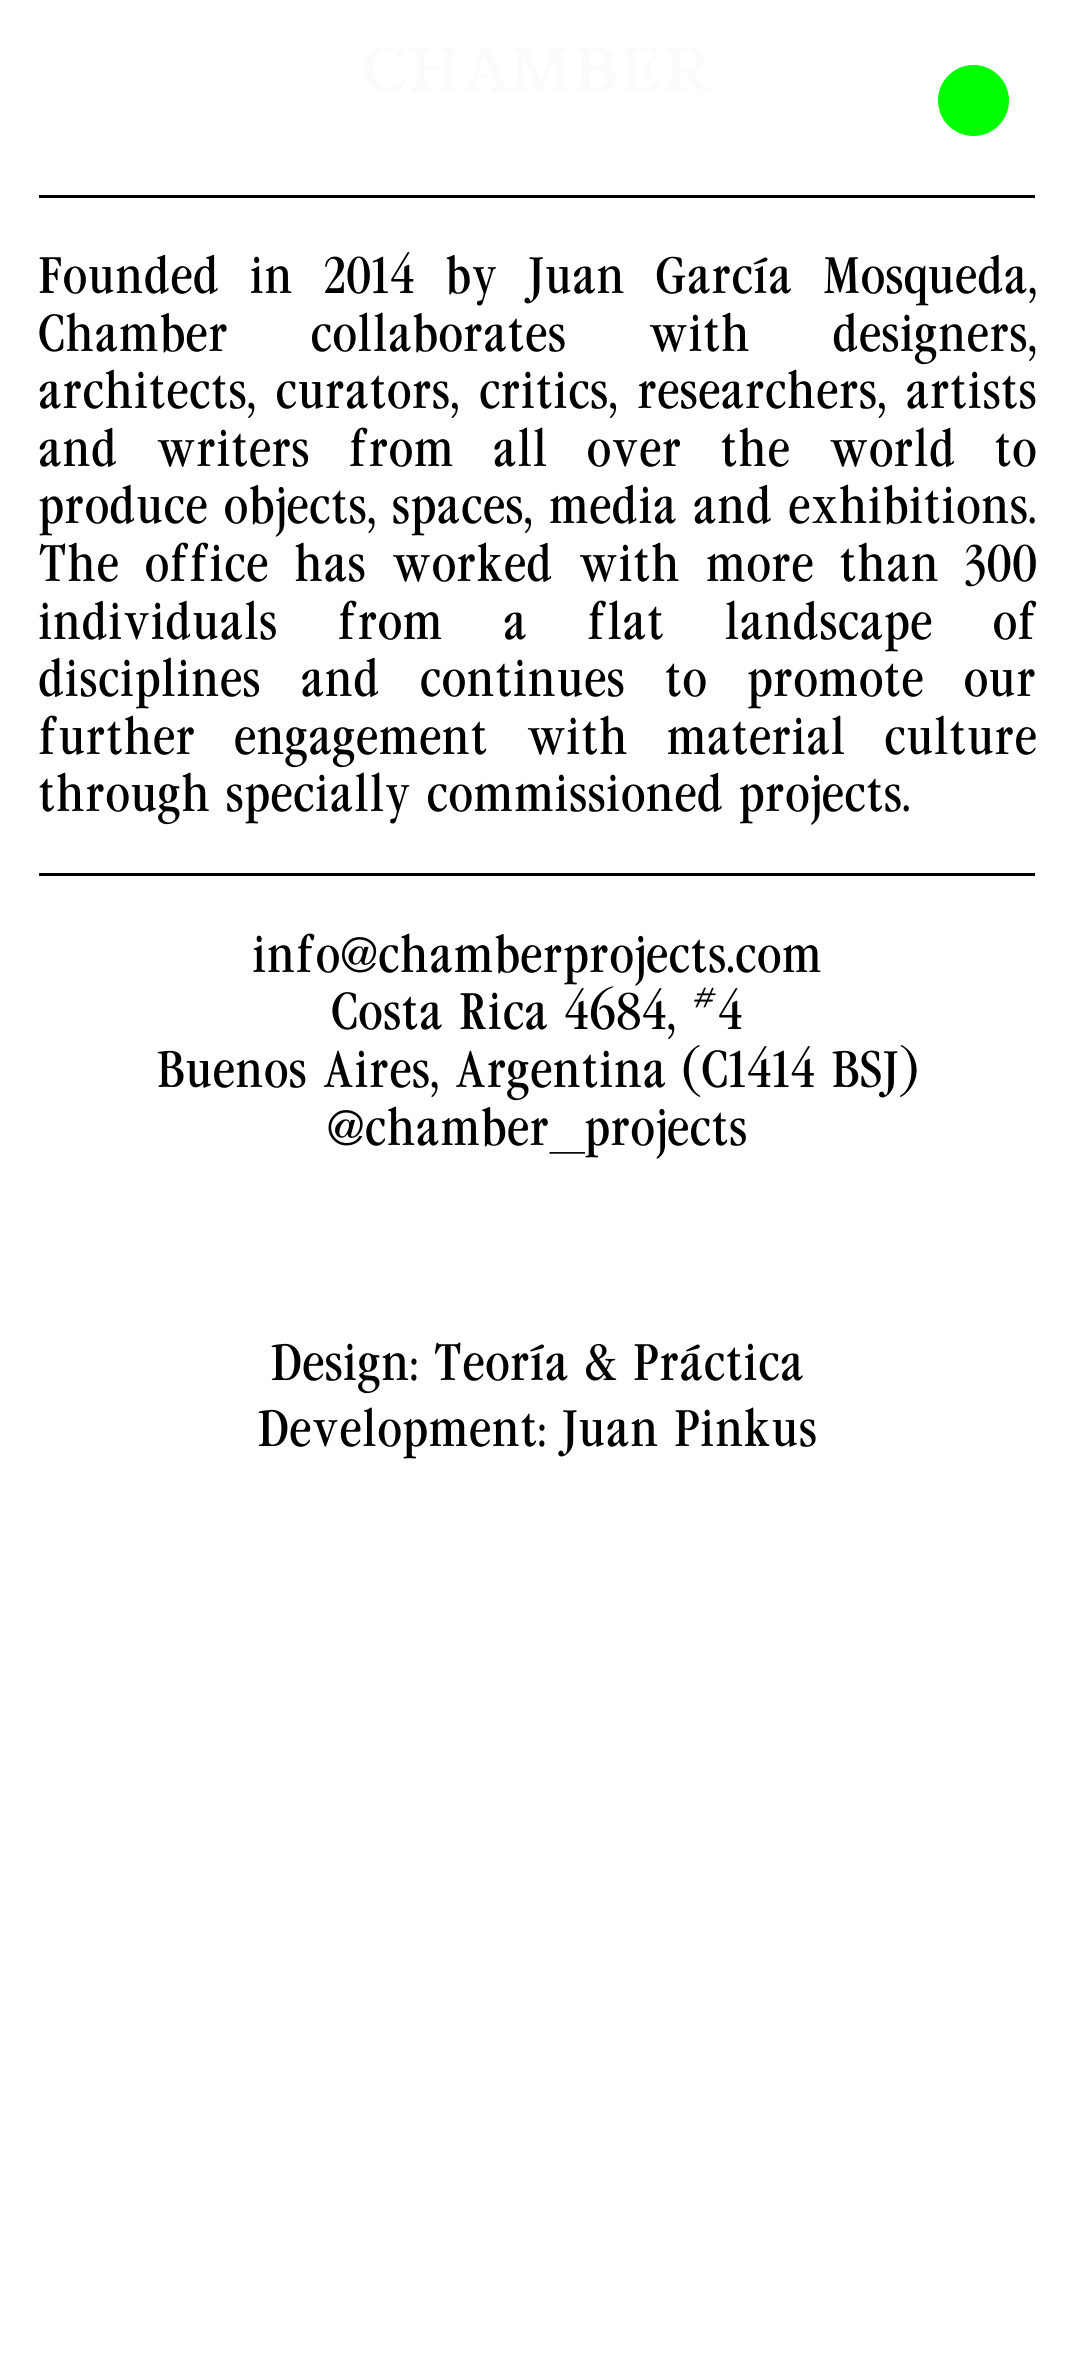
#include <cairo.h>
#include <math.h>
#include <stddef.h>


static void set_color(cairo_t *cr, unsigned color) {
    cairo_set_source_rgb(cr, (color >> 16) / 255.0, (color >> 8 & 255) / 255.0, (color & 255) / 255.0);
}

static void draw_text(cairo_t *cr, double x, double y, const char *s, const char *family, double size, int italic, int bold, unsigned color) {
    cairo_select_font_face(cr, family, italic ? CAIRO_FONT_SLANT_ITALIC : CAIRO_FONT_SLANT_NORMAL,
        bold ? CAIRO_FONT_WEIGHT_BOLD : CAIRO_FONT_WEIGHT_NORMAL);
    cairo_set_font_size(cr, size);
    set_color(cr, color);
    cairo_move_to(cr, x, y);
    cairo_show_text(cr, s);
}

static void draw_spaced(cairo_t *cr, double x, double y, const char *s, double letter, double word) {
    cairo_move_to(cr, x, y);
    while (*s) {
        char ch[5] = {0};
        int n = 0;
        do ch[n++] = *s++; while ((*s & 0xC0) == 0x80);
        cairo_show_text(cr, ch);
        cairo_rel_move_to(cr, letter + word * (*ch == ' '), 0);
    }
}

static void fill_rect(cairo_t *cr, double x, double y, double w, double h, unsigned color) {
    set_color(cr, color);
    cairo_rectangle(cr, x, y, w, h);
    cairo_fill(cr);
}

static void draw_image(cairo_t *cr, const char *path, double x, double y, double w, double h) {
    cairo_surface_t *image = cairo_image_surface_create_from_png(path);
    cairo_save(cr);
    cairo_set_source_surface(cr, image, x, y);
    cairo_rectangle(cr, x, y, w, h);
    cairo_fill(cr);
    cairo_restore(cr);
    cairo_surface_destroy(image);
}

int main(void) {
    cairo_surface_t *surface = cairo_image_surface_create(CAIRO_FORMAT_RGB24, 1072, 2363);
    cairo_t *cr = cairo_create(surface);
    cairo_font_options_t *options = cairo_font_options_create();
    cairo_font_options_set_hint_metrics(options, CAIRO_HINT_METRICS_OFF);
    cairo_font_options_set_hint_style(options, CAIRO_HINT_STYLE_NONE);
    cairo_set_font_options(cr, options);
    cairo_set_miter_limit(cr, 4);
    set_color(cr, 0xFFFFFF);
    cairo_paint(cr);
    draw_image(cr, "assets/img1.png", 364, 47, 345, 45);
    set_color(cr, 0x00FF00);
    cairo_arc(cr, 973.5, 100.5, 35.5, 0, 2 * M_PI);
    cairo_fill(cr);
    fill_rect(cr, 39, 195, 996, 3, 0x000000);
    cairo_select_font_face(cr, "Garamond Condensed", CAIRO_FONT_SLANT_NORMAL, CAIRO_FONT_WEIGHT_NORMAL);
    cairo_set_font_size(cr, 48);
    draw_spaced(cr, 38, 293, "Founded in 2014 by Juan García Mosqueda,", 0, 15);
    draw_spaced(cr, 38, 351, "Chamber collaborates with designers,", 0, 67);
    draw_spaced(cr, 38, 408, "architects, curators, critics, researchers, artists", 0, 4);
    draw_spaced(cr, 38, 466, "and writers from all over the world to", 0, 23.5);
    draw_spaced(cr, 38, 523, "produce objects, spaces, media and exhibitions.", 0, 0.5);
    draw_spaced(cr, 38, 581, "The office has worked with more than 300", 0, 10.25);
    draw_spaced(cr, 38, 639, "individuals from a flat landscape of", 0, 44.75);
    draw_spaced(cr, 38, 696, "disciplines and continues to promote our", 0, 24.5);
    draw_spaced(cr, 38, 754, "further engagement with material culture", 0, 23);
    draw_text(cr, 38, 811, "through specially commissioned projects.", "Garamond Condensed", 48, 0, 0, 0x000000);
    fill_rect(cr, 39, 873, 996, 3, 0x000000);
    draw_text(cr, 252, 972, "info@chamberprojects.com", "Garamond Condensed", 48, 0, 0, 0x000000);
    draw_text(cr, 331, 1029, "Costa Rica 4684, #4", "Garamond Condensed", 48, 0, 0, 0x000000);
    draw_text(cr, 156, 1087, "Buenos Aires, Argentina (C1414 BSJ)", "Garamond Condensed", 48, 0, 0, 0x000000);
    draw_text(cr, 327, 1145, "@chamber_projects", "Garamond Condensed", 48, 0, 0, 0x000000);
    draw_text(cr, 270, 1380, "Design: Teoría & Práctica", "Garamond Condensed", 48, 0, 0, 0x000000);
    draw_text(cr, 257, 1446, "Development: Juan Pinkus", "Garamond Condensed", 48, 0, 0, 0x000000);
    cairo_surface_write_to_png(surface, "output.png");
    cairo_font_options_destroy(options);
    cairo_destroy(cr);
    cairo_surface_destroy(surface);
    return 0;
}
